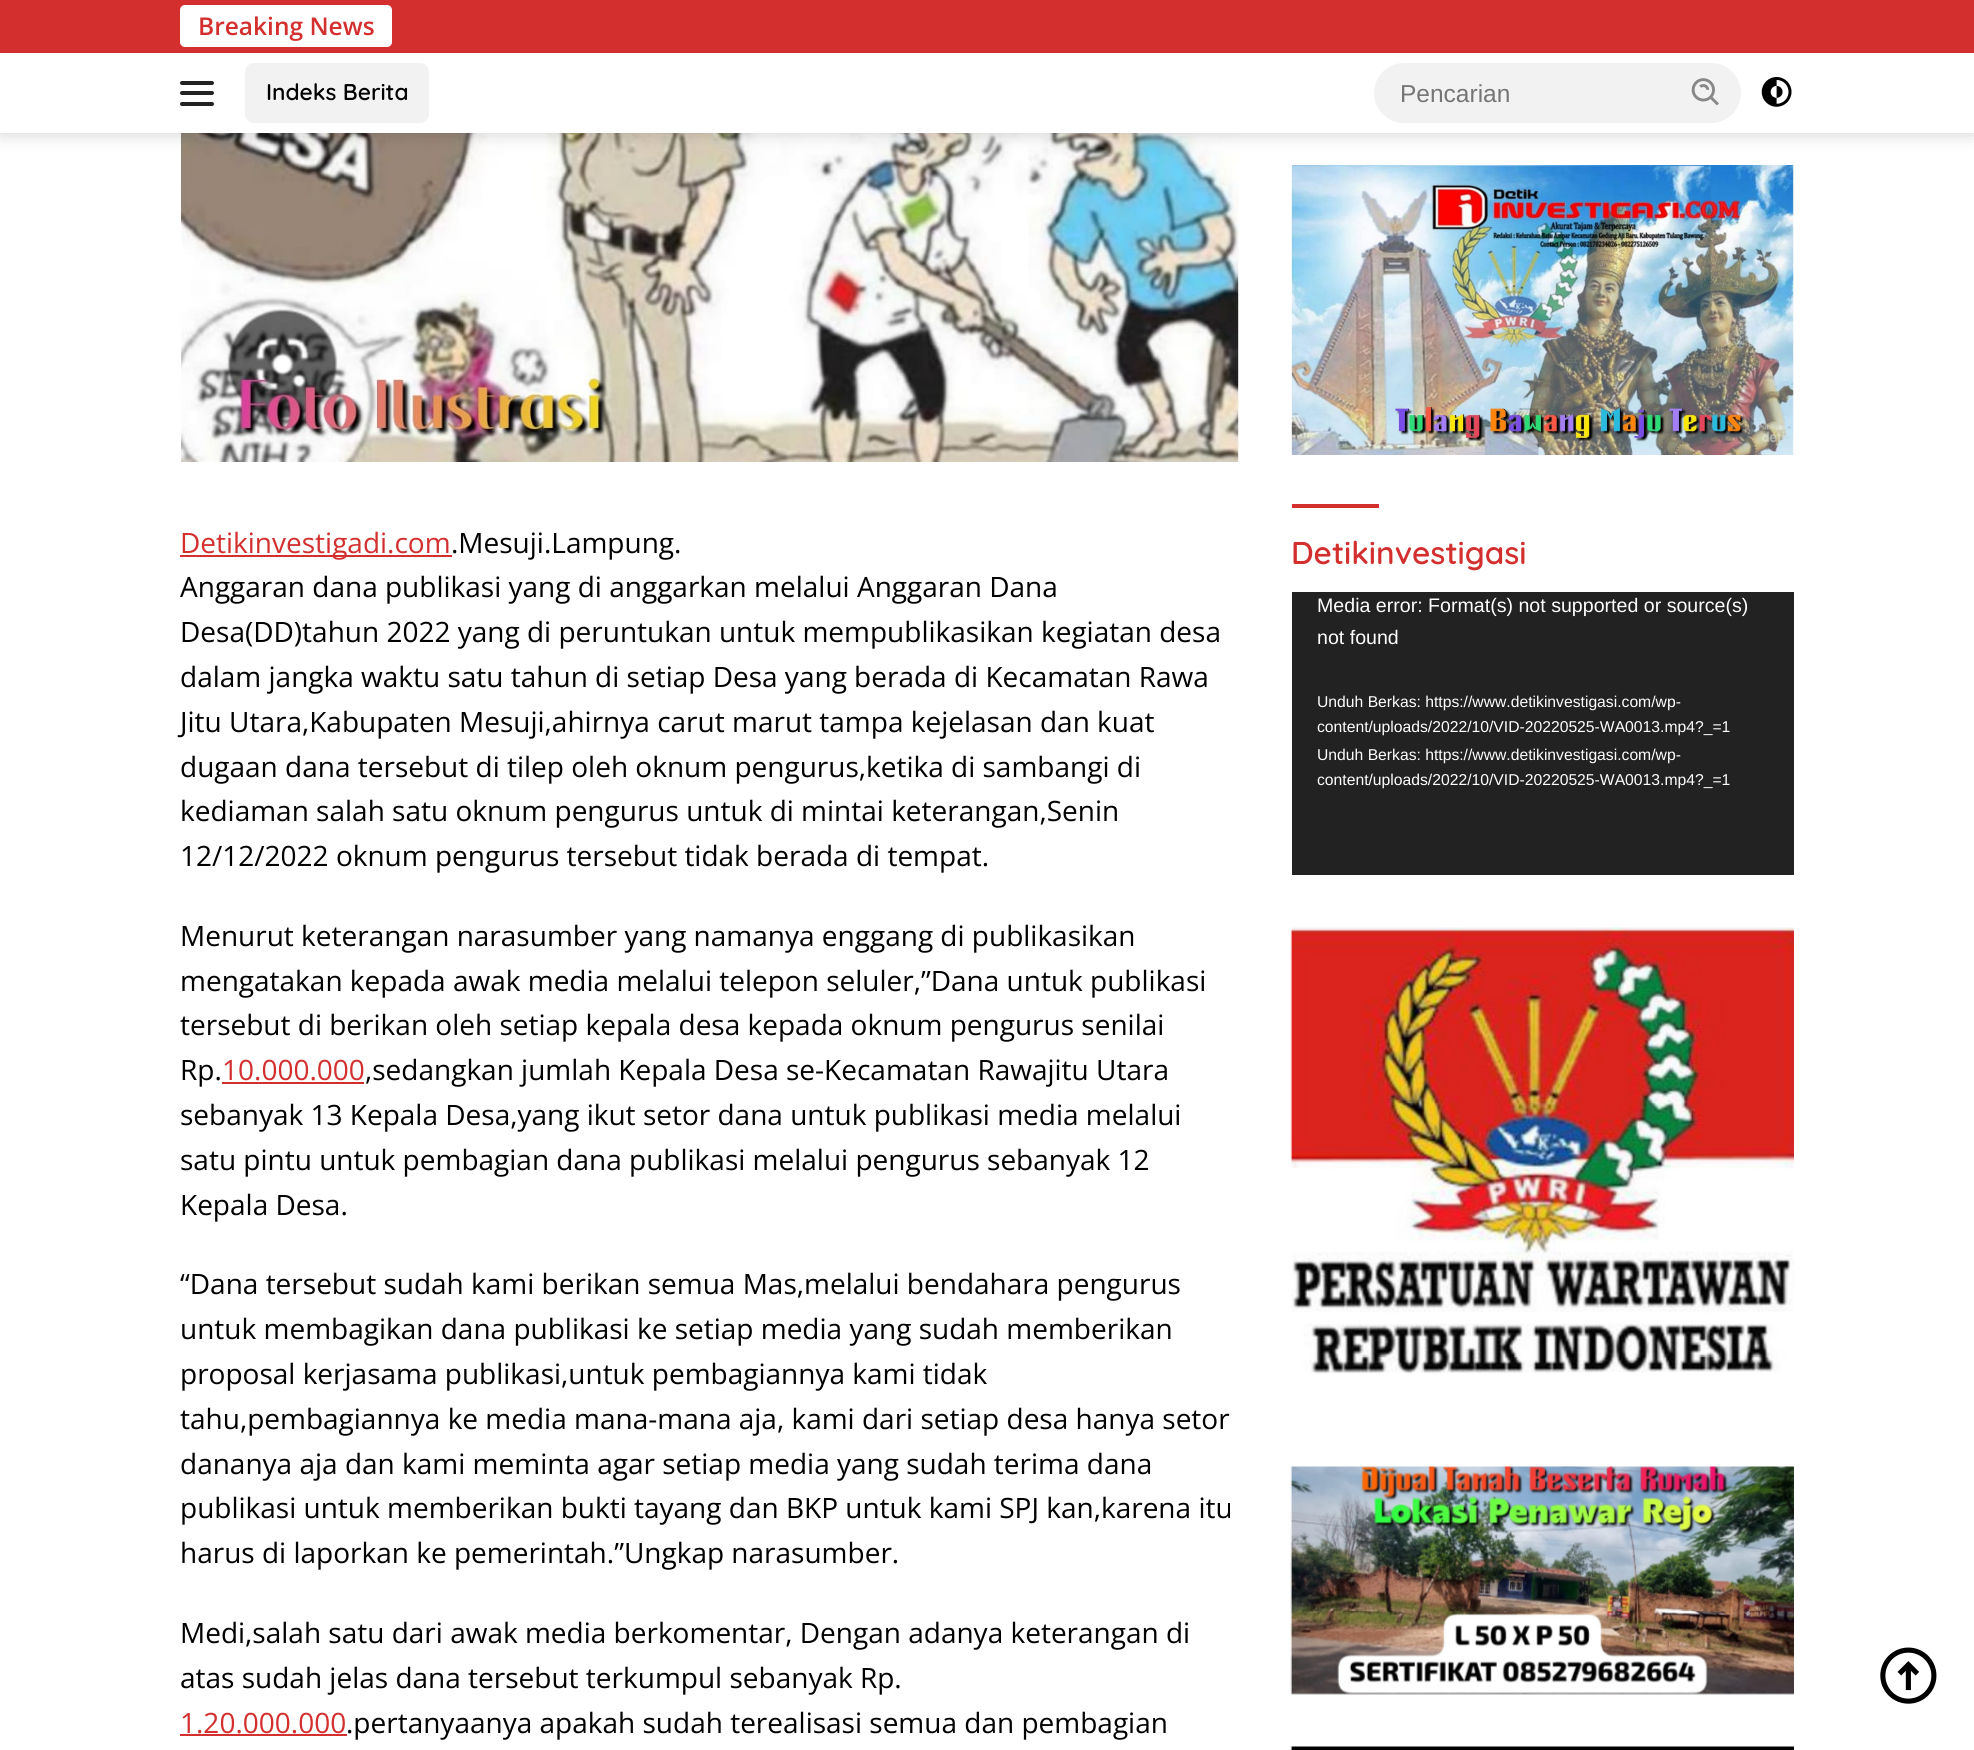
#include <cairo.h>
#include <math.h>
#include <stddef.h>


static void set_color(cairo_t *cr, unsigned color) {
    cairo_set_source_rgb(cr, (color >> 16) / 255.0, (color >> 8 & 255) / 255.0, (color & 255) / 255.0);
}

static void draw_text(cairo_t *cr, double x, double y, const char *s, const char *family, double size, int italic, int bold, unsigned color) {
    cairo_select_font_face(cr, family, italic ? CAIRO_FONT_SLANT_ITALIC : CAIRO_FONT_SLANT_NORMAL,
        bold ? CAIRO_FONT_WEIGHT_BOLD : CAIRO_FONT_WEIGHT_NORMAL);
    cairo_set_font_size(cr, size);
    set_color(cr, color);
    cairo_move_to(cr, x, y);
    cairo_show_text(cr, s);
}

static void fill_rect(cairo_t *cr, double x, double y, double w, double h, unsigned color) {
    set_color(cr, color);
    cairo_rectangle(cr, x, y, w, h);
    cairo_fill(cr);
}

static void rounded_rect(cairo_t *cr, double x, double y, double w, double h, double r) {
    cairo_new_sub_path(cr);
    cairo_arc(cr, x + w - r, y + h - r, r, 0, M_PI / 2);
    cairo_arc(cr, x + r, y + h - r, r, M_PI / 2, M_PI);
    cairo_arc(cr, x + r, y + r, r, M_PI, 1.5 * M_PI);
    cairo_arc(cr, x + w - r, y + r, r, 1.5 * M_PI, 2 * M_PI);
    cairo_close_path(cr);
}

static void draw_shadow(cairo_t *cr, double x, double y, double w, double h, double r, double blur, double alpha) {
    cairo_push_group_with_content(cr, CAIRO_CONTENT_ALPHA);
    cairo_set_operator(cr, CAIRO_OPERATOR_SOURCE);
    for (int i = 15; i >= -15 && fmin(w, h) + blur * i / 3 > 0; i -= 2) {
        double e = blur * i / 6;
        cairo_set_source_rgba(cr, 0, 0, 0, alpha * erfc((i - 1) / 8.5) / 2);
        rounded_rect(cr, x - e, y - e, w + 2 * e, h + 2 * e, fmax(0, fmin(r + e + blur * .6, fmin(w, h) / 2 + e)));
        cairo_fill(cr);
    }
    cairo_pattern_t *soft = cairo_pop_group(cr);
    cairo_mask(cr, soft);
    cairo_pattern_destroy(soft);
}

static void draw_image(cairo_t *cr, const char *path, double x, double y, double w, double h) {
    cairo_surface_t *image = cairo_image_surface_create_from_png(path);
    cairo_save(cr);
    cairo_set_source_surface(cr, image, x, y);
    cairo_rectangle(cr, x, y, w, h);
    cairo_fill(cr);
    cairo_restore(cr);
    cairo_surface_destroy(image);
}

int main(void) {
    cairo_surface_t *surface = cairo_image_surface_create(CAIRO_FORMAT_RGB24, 1974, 1750);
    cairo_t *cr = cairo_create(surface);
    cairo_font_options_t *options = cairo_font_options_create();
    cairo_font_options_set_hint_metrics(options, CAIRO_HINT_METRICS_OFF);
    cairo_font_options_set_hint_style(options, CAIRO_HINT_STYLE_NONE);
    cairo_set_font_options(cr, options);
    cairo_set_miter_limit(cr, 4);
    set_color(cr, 0xFFFFFF);
    cairo_paint(cr);
    draw_image(cr, "assets/img3.png", 180, 133, 1059, 329);
    set_color(cr, 0x000000);
    draw_shadow(cr, 0, 0, 1974, 133, 0, 9, 0.2);
    fill_rect(cr, 0, 53, 1974, 80, 0xFFFFFF);
    fill_rect(cr, 0, 0, 1974, 53, 0xD32F2F);
    set_color(cr, 0xFFFFFF);
    rounded_rect(cr, 180, 5, 212, 42, 5);
    cairo_fill(cr);
    draw_text(cr, 198, 35, "Breaking News", "Open Sans SemiBold", 24.5, 0, 0, 0xD32F2F);
    set_color(cr, 0x222222);
    rounded_rect(cr, 180, 81, 34, 4, 2);
    cairo_fill(cr);
    rounded_rect(cr, 180, 91, 34, 4, 2);
    cairo_fill(cr);
    rounded_rect(cr, 180, 102, 34, 4, 2);
    cairo_fill(cr);
    set_color(cr, 0xF2F2F2);
    rounded_rect(cr, 245, 63, 184, 60, 9);
    cairo_fill(cr);
    draw_text(cr, 266, 100, "Indeks Berita", "Quicksand SemiBold", 22.75, 0, 0, 0x000000);
    set_color(cr, 0xF2F2F2);
    rounded_rect(cr, 1374, 63, 367, 60, 30);
    cairo_fill(cr);
    draw_text(cr, 1400, 102, "Pencarian", "Liberation Sans", 24.5, 0, 0, 0x757575);
    draw_image(cr, "assets/img1.png", 1691, 78, 28, 28);
    draw_image(cr, "assets/img2.png", 1761, 77, 31, 30);
    fill_rect(cr, 180, 555, 272, 2, 0xD32F2F);
    draw_text(cr, 180, 553, "Detikinvestigadi.com", "Open Sans", 28, 0, 0, 0xD32F2F);
    draw_text(cr, 451, 553, ".Mesuji.Lampung.", "Open Sans", 28, 0, 0, 0x000000);
    draw_text(cr, 180, 597, "Anggaran dana publikasi yang di anggarkan melalui Anggaran Dana", "Open Sans", 28, 0, 0, 0x000000);
    draw_text(cr, 180, 642, "Desa(DD)tahun 2022 yang di peruntukan untuk mempublikasikan kegiatan desa", "Open Sans", 28, 0, 0, 0x000000);
    draw_text(cr, 180, 687, "dalam jangka waktu satu tahun di setiap Desa yang berada di Kecamatan Rawa", "Open Sans", 28, 0, 0, 0x000000);
    draw_text(cr, 180, 732, "Jitu Utara,Kabupaten Mesuji,ahirnya carut marut tampa kejelasan dan kuat", "Open Sans", 28, 0, 0, 0x000000);
    draw_text(cr, 180, 777, "dugaan dana tersebut di tilep oleh oknum pengurus,ketika di sambangi di", "Open Sans", 28, 0, 0, 0x000000);
    draw_text(cr, 180, 821, "kediaman salah satu oknum pengurus untuk di mintai keterangan,Senin", "Open Sans", 28, 0, 0, 0x000000);
    draw_text(cr, 180, 866, "12/12/2022 oknum pengurus tersebut tidak berada di tempat.", "Open Sans", 28, 0, 0, 0x000000);
    draw_text(cr, 180, 946, "Menurut keterangan narasumber yang namanya enggang di publikasikan", "Open Sans", 28, 0, 0, 0x000000);
    draw_text(cr, 180, 991, "mengatakan kepada awak media melalui telepon seluler,”Dana untuk publikasi", "Open Sans", 28, 0, 0, 0x000000);
    draw_text(cr, 180, 1035, "tersebut di berikan oleh setiap kepala desa kepada oknum pengurus senilai", "Open Sans", 28, 0, 0, 0x000000);
    draw_text(cr, 180, 1080, "Rp.", "Open Sans", 28, 0, 0, 0x000000);
    draw_text(cr, 222, 1080, "10.000.000", "Open Sans", 28, 0, 0, 0xD32F2F);
    fill_rect(cr, 222, 1082, 142, 2, 0xD32F2F);
    draw_text(cr, 365, 1080, ",sedangkan jumlah Kepala Desa se-Kecamatan Rawajitu Utara", "Open Sans", 28, 0, 0, 0x000000);
    draw_text(cr, 180, 1125, "sebanyak 13 Kepala Desa,yang ikut setor dana untuk publikasi media melalui", "Open Sans", 28, 0, 0, 0x000000);
    draw_text(cr, 180, 1170, "satu pintu untuk pembagian dana publikasi melalui pengurus sebanyak 12", "Open Sans", 28, 0, 0, 0x000000);
    draw_text(cr, 180, 1215, "Kepala Desa.", "Open Sans", 28, 0, 0, 0x000000);
    draw_text(cr, 180, 1294, "“Dana tersebut sudah kami berikan semua Mas,melalui bendahara pengurus", "Open Sans", 28, 0, 0, 0x000000);
    draw_text(cr, 180, 1339, "untuk membagikan dana publikasi ke setiap media yang sudah memberikan", "Open Sans", 28, 0, 0, 0x000000);
    draw_text(cr, 180, 1384, "proposal kerjasama publikasi,untuk pembagiannya kami tidak", "Open Sans", 28, 0, 0, 0x000000);
    draw_text(cr, 180, 1429, "tahu,pembagiannya ke media mana-mana aja, kami dari setiap desa hanya setor", "Open Sans", 28, 0, 0, 0x000000);
    draw_text(cr, 180, 1474, "dananya aja dan kami meminta agar setiap media yang sudah terima dana", "Open Sans", 28, 0, 0, 0x000000);
    draw_text(cr, 180, 1518, "publikasi untuk memberikan bukti tayang dan BKP untuk kami SPJ kan,karena itu", "Open Sans", 28, 0, 0, 0x000000);
    draw_text(cr, 180, 1563, "harus di laporkan ke pemerintah.”Ungkap narasumber.", "Open Sans", 28, 0, 0, 0x000000);
    draw_text(cr, 180, 1643, "Medi,salah satu dari awak media berkomentar, Dengan adanya keterangan di", "Open Sans", 28, 0, 0, 0x000000);
    draw_text(cr, 180, 1688, "atas sudah jelas dana tersebut terkumpul sebanyak Rp.", "Open Sans", 28, 0, 0, 0x000000);
    draw_text(cr, 180, 1733, "1.20.000.000", "Open Sans", 28, 0, 0, 0xD32F2F);
    fill_rect(cr, 180, 1734, 167, 2, 0xD32F2F);
    draw_text(cr, 346, 1733, ".pertanyaanya apakah sudah terealisasi semua dan pembagian", "Open Sans", 28, 0, 0, 0x000000);
    draw_image(cr, "assets/img4.png", 1291, 165, 503, 290);
    fill_rect(cr, 1292, 504, 87, 4, 0xD32F2F);
    draw_text(cr, 1291, 564, "Detikinvestigasi", "Quicksand SemiBold", 31.5, 0, 0, 0xD32F2F);
    fill_rect(cr, 1292, 592, 502, 283, 0x222222);
    draw_text(cr, 1317, 612, "Media error: Format(s) not supported or source(s)", "Liberation Sans", 19.6, 0, 0, 0xFFFFFF);
    draw_text(cr, 1317, 644, "not found", "Liberation Sans", 19.6, 0, 0, 0xFFFFFF);
    draw_text(cr, 1317, 707, "Unduh Berkas: https://www.detikinvestigasi.com/wp-", "Liberation Sans", 15.7, 0, 0, 0xFFFFFF);
    draw_text(cr, 1317, 732, "content/uploads/2022/10/VID-20220525-WA0013.mp4?_=1", "Liberation Sans", 15.7, 0, 0, 0xFFFFFF);
    draw_text(cr, 1317, 760, "Unduh Berkas: https://www.detikinvestigasi.com/wp-", "Liberation Sans", 15.7, 0, 0, 0xFFFFFF);
    draw_text(cr, 1317, 785, "content/uploads/2022/10/VID-20220525-WA0013.mp4?_=1", "Liberation Sans", 15.7, 0, 0, 0xFFFFFF);
    draw_image(cr, "assets/img5.png", 1290, 927, 504, 447);
    draw_image(cr, "assets/img6.png", 1290, 1466, 504, 229);
    draw_image(cr, "assets/img7.png", 1290, 1746, 504, 4);
    draw_image(cr, "assets/img8.png", 1880, 1647, 57, 57);
    cairo_surface_write_to_png(surface, "output.png");
    cairo_font_options_destroy(options);
    cairo_destroy(cr);
    cairo_surface_destroy(surface);
    return 0;
}
